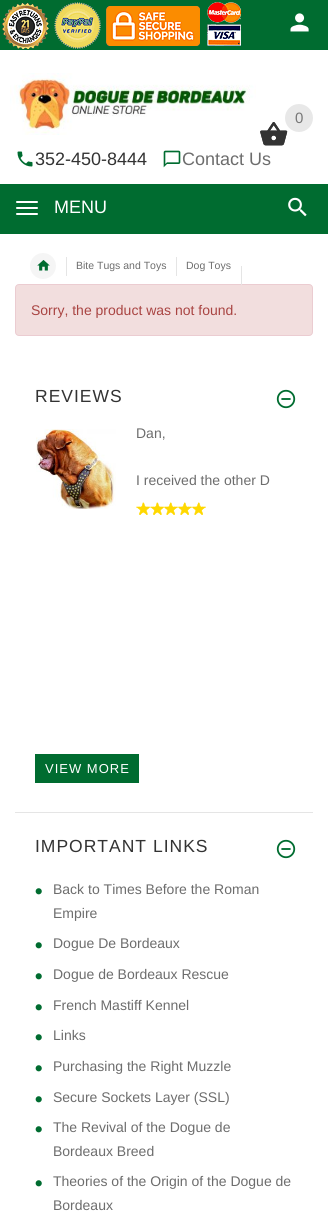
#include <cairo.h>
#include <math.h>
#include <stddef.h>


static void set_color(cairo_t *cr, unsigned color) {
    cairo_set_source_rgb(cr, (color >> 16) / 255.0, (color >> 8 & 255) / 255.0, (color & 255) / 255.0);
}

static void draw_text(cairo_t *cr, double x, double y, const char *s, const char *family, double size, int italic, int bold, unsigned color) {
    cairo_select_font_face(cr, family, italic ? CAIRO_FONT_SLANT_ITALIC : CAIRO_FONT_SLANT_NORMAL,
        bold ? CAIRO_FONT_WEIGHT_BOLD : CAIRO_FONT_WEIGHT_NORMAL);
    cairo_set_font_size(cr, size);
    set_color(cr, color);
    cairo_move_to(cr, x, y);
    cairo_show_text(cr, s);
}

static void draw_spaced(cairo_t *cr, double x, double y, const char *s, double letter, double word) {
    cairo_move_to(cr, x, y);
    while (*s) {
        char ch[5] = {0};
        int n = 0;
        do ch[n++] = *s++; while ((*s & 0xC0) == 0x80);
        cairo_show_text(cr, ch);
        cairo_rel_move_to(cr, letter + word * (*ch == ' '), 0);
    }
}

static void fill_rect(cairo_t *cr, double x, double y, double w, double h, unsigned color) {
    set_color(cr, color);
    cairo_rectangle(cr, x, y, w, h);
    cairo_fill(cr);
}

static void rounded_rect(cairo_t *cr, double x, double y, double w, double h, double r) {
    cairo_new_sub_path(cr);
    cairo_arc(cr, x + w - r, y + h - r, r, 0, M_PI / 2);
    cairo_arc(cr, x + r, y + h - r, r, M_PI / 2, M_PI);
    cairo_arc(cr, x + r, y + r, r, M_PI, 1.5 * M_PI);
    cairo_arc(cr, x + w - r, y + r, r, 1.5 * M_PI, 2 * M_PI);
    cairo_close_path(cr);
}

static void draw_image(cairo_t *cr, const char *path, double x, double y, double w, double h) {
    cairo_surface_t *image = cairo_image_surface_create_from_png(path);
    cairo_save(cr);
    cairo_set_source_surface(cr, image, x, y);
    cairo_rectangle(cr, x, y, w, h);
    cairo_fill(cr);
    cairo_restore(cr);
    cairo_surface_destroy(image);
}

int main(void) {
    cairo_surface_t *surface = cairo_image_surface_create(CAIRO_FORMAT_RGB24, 328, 1213);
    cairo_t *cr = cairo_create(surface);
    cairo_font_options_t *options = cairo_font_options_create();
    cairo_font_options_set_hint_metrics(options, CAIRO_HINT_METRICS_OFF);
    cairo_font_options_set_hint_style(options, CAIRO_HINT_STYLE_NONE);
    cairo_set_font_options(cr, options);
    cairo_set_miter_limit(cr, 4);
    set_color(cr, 0xFFFFFF);
    cairo_paint(cr);
    fill_rect(cr, 0, 0, 328, 50, 0x006C30);
    draw_image(cr, "assets/img1.png", 290, 13, 19, 19);
    draw_image(cr, "assets/img2.png", 2, 2, 239, 47);
    draw_image(cr, "assets/img6.png", 260, 122, 28, 24);
    set_color(cr, 0xE8E8E8);
    cairo_arc(cr, 299, 118, 14, 0, 2 * M_PI);
    cairo_fill(cr);
    draw_text(cr, 295, 123, "0", "Liberation Sans", 15, 0, 0, 0x777777);
    draw_image(cr, "assets/img3.png", 260, 122, 28, 24);
    fill_rect(cr, 0, 184, 328, 50, 0x006C30);
    draw_image(cr, "assets/img4.png", 288, 197, 19, 20);
    set_color(cr, 0xFFFFFF);
    rounded_rect(cr, 16, 201, 22, 2, 1);
    cairo_fill(cr);
    draw_text(cr, 54, 213, "MENU", "Liberation Sans", 18, 0, 0, 0xFFFFFF);
    rounded_rect(cr, 16, 207, 22, 2, 1);
    cairo_fill(cr);
    rounded_rect(cr, 16, 213, 22, 2, 1);
    cairo_fill(cr);
    draw_image(cr, "assets/img5.png", 10, 73, 246, 62);
    draw_image(cr, "assets/img7.png", 17, 151, 16, 16);
    draw_text(cr, 35, 165, "352-450-8444", "Liberation Sans", 18, 0, 0, 0x333333);
    draw_image(cr, "assets/img8.png", 163, 150, 18, 18);
    draw_text(cr, 182, 165, "Contact Us", "Liberation Sans", 18, 0, 0, 0x6D6D6D);
    set_color(cr, 0xF5F5F5);
    cairo_new_path(cr);
    cairo_arc(cr, 43, 266, 13, 0, 2 * M_PI);
    cairo_fill(cr);
    draw_image(cr, "assets/img9.png", 37, 260, 13, 11);
    fill_rect(cr, 66, 257, 1, 19, 0xE5E5E5);
    draw_text(cr, 76, 269, "Bite Tugs and Toys", "Liberation Sans", 10.5, 0, 0, 0x6D6D6D);
    fill_rect(cr, 176, 257, 1, 19, 0xE5E5E5);
    draw_text(cr, 186, 269, "Dog Toys", "Liberation Sans", 10.5, 0, 0, 0x6D6D6D);
    set_color(cr, 0xF2DEDE);
    rounded_rect(cr, 15.5, 284.5, 297, 51, 3.5);
    cairo_fill_preserve(cr);
    set_color(cr, 0xEBCCD1);
    cairo_set_line_width(cr, 1);
    cairo_stroke(cr);
    fill_rect(cr, 241, 266, 1, 19, 0xE5E5E5);
    draw_text(cr, 31, 315, "Sorry, the product was not found.", "Liberation Sans", 14, 0, 0, 0xA94442);
    fill_rect(cr, 15, 812, 298, 1, 0xE5E5E5);
    cairo_set_font_size(cr, 17.5);
    set_color(cr, 0x333333);
    draw_spaced(cr, 35, 402, "REVIEWS", 1, 0);
    draw_image(cr, "assets/img10.png", 276, 389, 20, 20);
    draw_image(cr, "assets/img11.png", 36, 429, 80, 80);
    draw_text(cr, 136, 438, "Dan,", "Liberation Sans", 14, 0, 0, 0x6D6D6D);
    draw_text(cr, 136, 485, "I received the other D", "Liberation Sans", 14, 0, 0, 0x6D6D6D);
    draw_image(cr, "assets/img12.png", 136, 502, 70, 13);
    fill_rect(cr, 35, 754, 104, 29, 0x006C30);
    cairo_set_font_size(cr, 13);
    set_color(cr, 0xFFFFFF);
    draw_spaced(cr, 45, 773, "VIEW MORE", 1, 0);
    cairo_set_font_size(cr, 17.5);
    set_color(cr, 0x333333);
    draw_spaced(cr, 35, 852, "IMPORTANT LINKS", 1, 0);
    draw_image(cr, "assets/img10.png", 276, 839, 20, 20);
    draw_image(cr, "assets/img13.png", 35, 888, 7, 7);
    draw_text(cr, 53, 894, "Back to Times Before the Roman", "Liberation Sans", 14, 0, 0, 0x6D6D6D);
    draw_text(cr, 53, 918, "Empire", "Liberation Sans", 14, 0, 0, 0x6D6D6D);
    draw_image(cr, "assets/img13.png", 35, 942, 7, 7);
    draw_text(cr, 53, 948, "Dogue De Bordeaux", "Liberation Sans", 14, 0, 0, 0x6D6D6D);
    draw_image(cr, "assets/img13.png", 35, 973, 7, 7);
    draw_text(cr, 53, 979, "Dogue de Bordeaux Rescue", "Liberation Sans", 14, 0, 0, 0x6D6D6D);
    draw_image(cr, "assets/img13.png", 35, 1004, 7, 7);
    draw_text(cr, 53, 1010, "French Mastiff Kennel", "Liberation Sans", 14, 0, 0, 0x6D6D6D);
    draw_image(cr, "assets/img13.png", 35, 1034, 7, 7);
    draw_text(cr, 53, 1040, "Links", "Liberation Sans", 14, 0, 0, 0x6D6D6D);
    draw_image(cr, "assets/img13.png", 35, 1065, 7, 7);
    draw_text(cr, 53, 1071, "Purchasing the Right Muzzle", "Liberation Sans", 14, 0, 0, 0x6D6D6D);
    draw_image(cr, "assets/img13.png", 35, 1096, 7, 7);
    draw_text(cr, 53, 1102, "Secure Sockets Layer (SSL)", "Liberation Sans", 14, 0, 0, 0x6D6D6D);
    draw_image(cr, "assets/img13.png", 35, 1126, 7, 7);
    draw_text(cr, 53, 1132, "The Revival of the Dogue de", "Liberation Sans", 14, 0, 0, 0x6D6D6D);
    draw_text(cr, 53, 1156, "Bordeaux Breed", "Liberation Sans", 14, 0, 0, 0x6D6D6D);
    draw_image(cr, "assets/img13.png", 35, 1180, 7, 7);
    draw_text(cr, 53, 1186, "Theories of the Origin of the Dogue de", "Liberation Sans", 14, 0, 0, 0x6D6D6D);
    draw_text(cr, 53, 1210, "Bordeaux", "Liberation Sans", 14, 0, 0, 0x6D6D6D);
    cairo_surface_write_to_png(surface, "output.png");
    cairo_font_options_destroy(options);
    cairo_destroy(cr);
    cairo_surface_destroy(surface);
    return 0;
}
